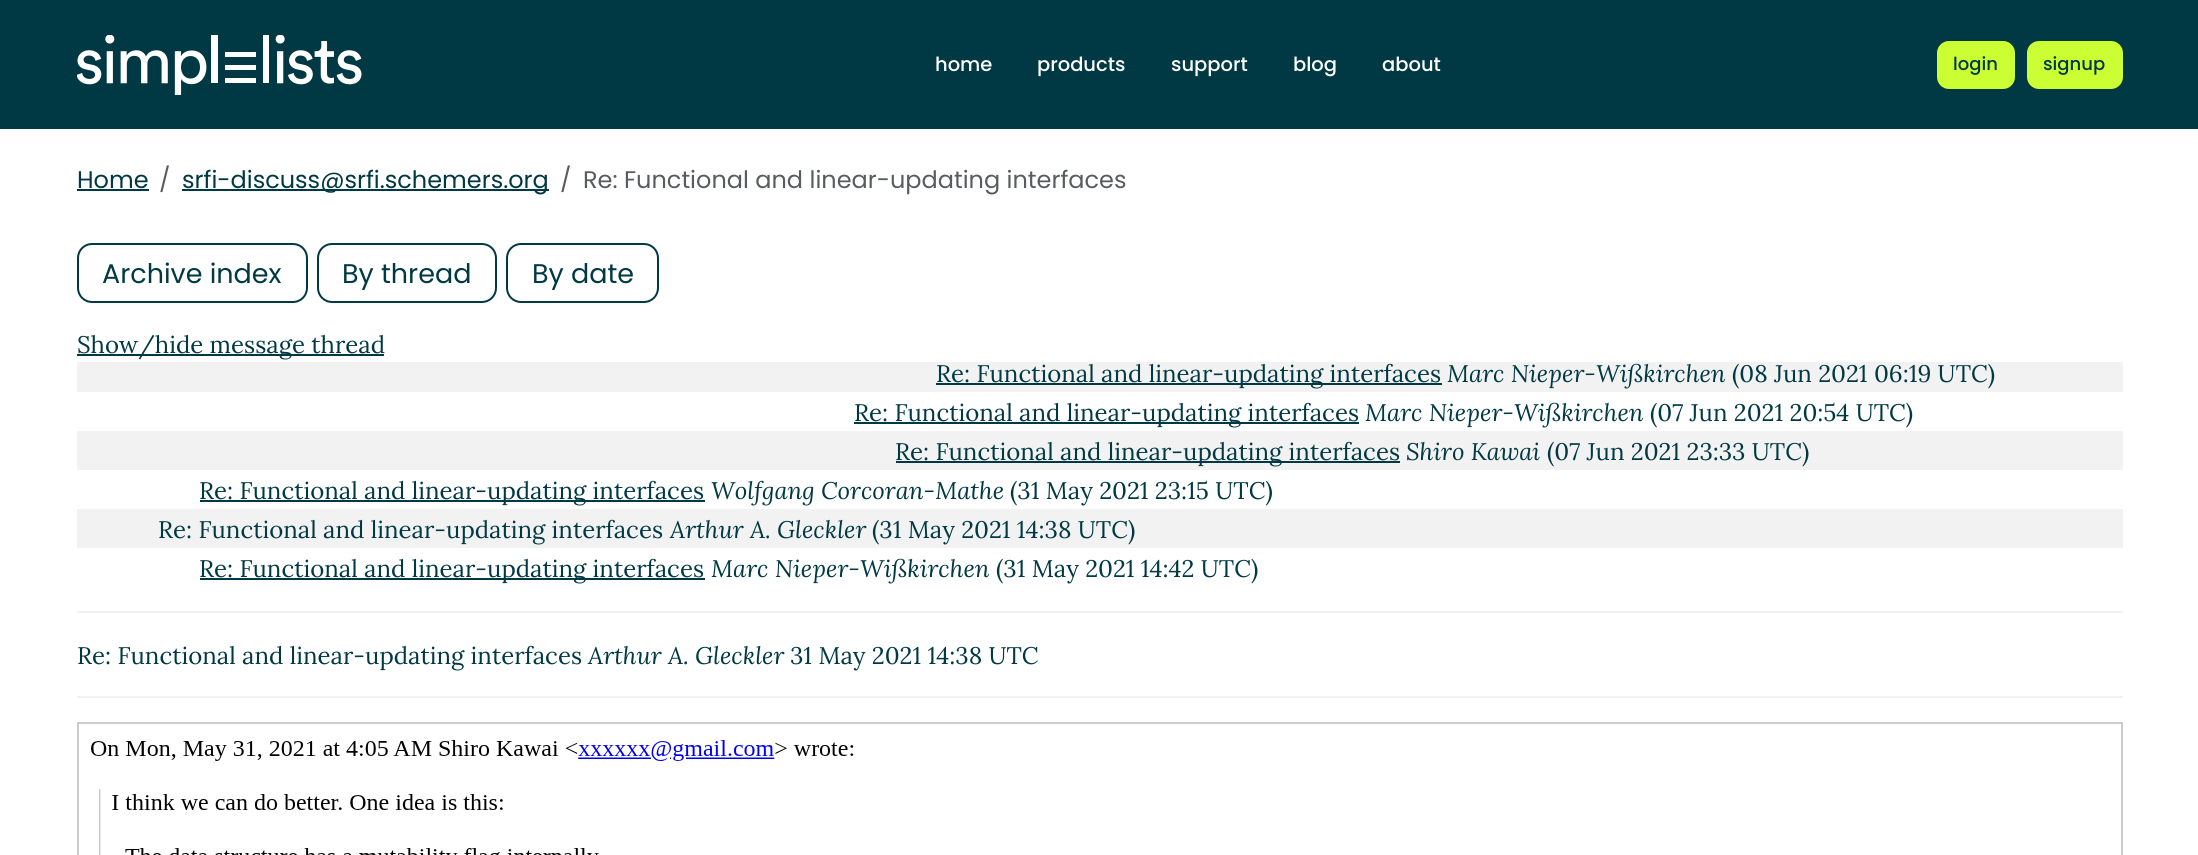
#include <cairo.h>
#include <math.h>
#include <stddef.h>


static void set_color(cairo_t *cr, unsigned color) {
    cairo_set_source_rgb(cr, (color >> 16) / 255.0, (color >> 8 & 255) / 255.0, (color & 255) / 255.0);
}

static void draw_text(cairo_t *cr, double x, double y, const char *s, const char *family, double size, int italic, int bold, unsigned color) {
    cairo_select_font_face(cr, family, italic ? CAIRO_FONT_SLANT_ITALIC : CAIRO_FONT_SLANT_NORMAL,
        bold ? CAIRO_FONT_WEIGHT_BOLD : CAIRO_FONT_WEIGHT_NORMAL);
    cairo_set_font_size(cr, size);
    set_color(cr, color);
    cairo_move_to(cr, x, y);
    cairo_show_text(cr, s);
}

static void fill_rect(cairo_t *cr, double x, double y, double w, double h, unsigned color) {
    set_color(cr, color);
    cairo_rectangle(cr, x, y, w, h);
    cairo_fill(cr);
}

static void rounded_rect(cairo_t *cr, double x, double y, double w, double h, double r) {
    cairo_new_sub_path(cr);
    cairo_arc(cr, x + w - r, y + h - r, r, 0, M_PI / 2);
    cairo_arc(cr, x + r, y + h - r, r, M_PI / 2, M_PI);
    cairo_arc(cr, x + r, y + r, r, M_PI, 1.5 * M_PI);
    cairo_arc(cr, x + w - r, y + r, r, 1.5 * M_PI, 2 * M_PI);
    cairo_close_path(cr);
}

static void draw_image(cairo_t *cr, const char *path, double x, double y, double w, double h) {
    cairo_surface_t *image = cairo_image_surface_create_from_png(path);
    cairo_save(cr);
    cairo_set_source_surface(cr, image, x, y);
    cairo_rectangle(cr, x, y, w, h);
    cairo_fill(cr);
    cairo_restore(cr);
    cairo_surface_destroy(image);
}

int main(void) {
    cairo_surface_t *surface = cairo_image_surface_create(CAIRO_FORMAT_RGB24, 2198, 855);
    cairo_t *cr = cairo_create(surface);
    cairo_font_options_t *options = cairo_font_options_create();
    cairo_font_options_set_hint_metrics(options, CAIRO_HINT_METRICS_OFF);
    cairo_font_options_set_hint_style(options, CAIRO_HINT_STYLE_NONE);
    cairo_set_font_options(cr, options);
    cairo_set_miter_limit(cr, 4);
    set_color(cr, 0xFFFFFF);
    cairo_paint(cr);
    fill_rect(cr, 0, 0, 2198, 129, 0x003944);
    draw_image(cr, "assets/img1.png", 77, 35, 285, 60);
    draw_text(cr, 935, 71, "home", "Poppins Medium", 19.5, 0, 0, 0xFFFFFF);
    draw_text(cr, 1037, 71, "products", "Poppins Medium", 19.5, 0, 0, 0xFFFFFF);
    draw_text(cr, 1171, 71, "support", "Poppins Medium", 19.5, 0, 0, 0xFFFFFF);
    draw_text(cr, 1293, 71, "blog", "Poppins Medium", 19.5, 0, 0, 0xFFFFFF);
    draw_text(cr, 1382, 71, "about", "Poppins Medium", 19.5, 0, 0, 0xFFFFFF);
    set_color(cr, 0xCCFF33);
    rounded_rect(cr, 1938, 42, 76, 46, 11);
    cairo_fill_preserve(cr);
    cairo_stroke(cr);
    draw_text(cr, 1953, 70, "login", "Poppins Medium", 18, 0, 0, 0x003944);
    set_color(cr, 0xCCFF33);
    rounded_rect(cr, 2028, 42, 94, 46, 11);
    cairo_fill_preserve(cr);
    cairo_stroke(cr);
    draw_text(cr, 2043, 70, "signup", "Poppins Medium", 18, 0, 0, 0x003944);
    draw_text(cr, 77, 188, "Home", "Poppins", 24, 0, 0, 0x003944);
    fill_rect(cr, 77, 189, 72, 2, 0x003944);
    draw_text(cr, 159, 188, "/", "Poppins", 24, 0, 0, 0x595C5F);
    fill_rect(cr, 182, 189, 367, 2, 0x003944);
    draw_text(cr, 182, 188, "srfi-discuss@srfi.schemers.org", "Poppins", 24, 0, 0, 0x003944);
    draw_text(cr, 560, 188, "/", "Poppins", 24, 0, 0, 0x595C5F);
    draw_text(cr, 583, 188, "Re: Functional and linear-updating interfaces", "Poppins", 24, 0, 0, 0x595C5F);
    rounded_rect(cr, 78, 244, 229, 58, 14);
    set_color(cr, 0x003944);
    cairo_stroke(cr);
    draw_text(cr, 102, 283, "Archive index", "Poppins", 27, 0, 0, 0x003944);
    rounded_rect(cr, 318, 244, 178, 58, 14);
    cairo_stroke(cr);
    draw_text(cr, 342, 283, "By thread", "Poppins", 27, 0, 0, 0x003944);
    rounded_rect(cr, 507, 244, 151, 58, 14);
    cairo_stroke(cr);
    draw_text(cr, 532, 283, "By date", "Poppins", 27, 0, 0, 0x003944);
    fill_rect(cr, 77, 354, 307, 2, 0x003944);
    draw_text(cr, 77, 353, "Show/hide message thread", "Lora", 24, 0, 0, 0x003944);
    fill_rect(cr, 77, 362, 2046, 30, 0xF2F2F2);
    fill_rect(cr, 936, 383, 506, 2, 0x003944);
    draw_text(cr, 936, 382, "Re: Functional and linear-updating interfaces", "Lora", 24, 0, 0, 0x003944);
    draw_text(cr, 1447, 382, "Marc Nieper-Wißkirchen", "Lora", 24, 1, 0, 0x003944);
    draw_text(cr, 1732, 382, "(08 Jun 2021 06:19 UTC)", "Lora", 24, 0, 0, 0x003944);
    fill_rect(cr, 854, 422, 505, 2, 0x003944);
    draw_text(cr, 854, 421, "Re: Functional and linear-updating interfaces", "Lora", 24, 0, 0, 0x003944);
    draw_text(cr, 1365, 421, "Marc Nieper-Wißkirchen", "Lora", 24, 1, 0, 0x003944);
    draw_text(cr, 1650, 421, "(07 Jun 2021 20:54 UTC)", "Lora", 24, 0, 0, 0x003944);
    fill_rect(cr, 77, 431, 2046, 39, 0xF2F2F2);
    fill_rect(cr, 896, 461, 504, 2, 0x003944);
    draw_text(cr, 895, 460, "Re: Functional and linear-updating interfaces", "Lora", 24, 0, 0, 0x003944);
    draw_text(cr, 1406, 460, "Shiro Kawai", "Lora", 24, 1, 0, 0x003944);
    draw_text(cr, 1547, 460, "(07 Jun 2021 23:33 UTC)", "Lora", 24, 0, 0, 0x003944);
    fill_rect(cr, 200, 500, 505, 2, 0x003944);
    draw_text(cr, 199, 499, "Re: Functional and linear-updating interfaces", "Lora", 24, 0, 0, 0x003944);
    draw_text(cr, 711, 499, "Wolfgang Corcoran-Mathe", "Lora", 24, 1, 0, 0x003944);
    draw_text(cr, 1010, 499, "(31 May 2021 23:15 UTC)", "Lora", 24, 0, 0, 0x003944);
    fill_rect(cr, 77, 509, 2046, 39, 0xF2F2F2);
    draw_text(cr, 158, 538, "Re: Functional and linear-updating interfaces", "Lora", 24, 0, 0, 0x003944);
    draw_text(cr, 670, 538, "Arthur A. Gleckler", "Lora", 24, 1, 0, 0x003944);
    draw_text(cr, 872, 538, "(31 May 2021 14:38 UTC)", "Lora", 24, 0, 0, 0x003944);
    fill_rect(cr, 200, 578, 505, 2, 0x003944);
    draw_text(cr, 199, 577, "Re: Functional and linear-updating interfaces", "Lora", 24, 0, 0, 0x003944);
    draw_text(cr, 711, 577, "Marc Nieper-Wißkirchen", "Lora", 24, 1, 0, 0x003944);
    draw_text(cr, 996, 577, "(31 May 2021 14:42 UTC)", "Lora", 24, 0, 0, 0x003944);
    fill_rect(cr, 77, 611, 2046, 2, 0xF2F2F2);
    draw_text(cr, 77, 664, "Re: Functional and linear-updating interfaces", "Lora", 24, 0, 0, 0x003944);
    draw_text(cr, 588, 664, "Arthur A. Gleckler", "Lora", 24, 1, 0, 0x003944);
    draw_text(cr, 790, 664, "31 May 2021 14:38 UTC", "Lora", 24, 0, 0, 0x003944);
    fill_rect(cr, 77, 696, 2046, 2, 0xF2F2F2);
    cairo_rectangle(cr, 78, 723, 2044, 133);
    set_color(cr, 0xCCCCCC);
    cairo_stroke(cr);
    draw_image(cr, "assets/img2.png", 91, 740, 763, 115);
    cairo_surface_write_to_png(surface, "output.png");
    cairo_font_options_destroy(options);
    cairo_destroy(cr);
    cairo_surface_destroy(surface);
    return 0;
}
